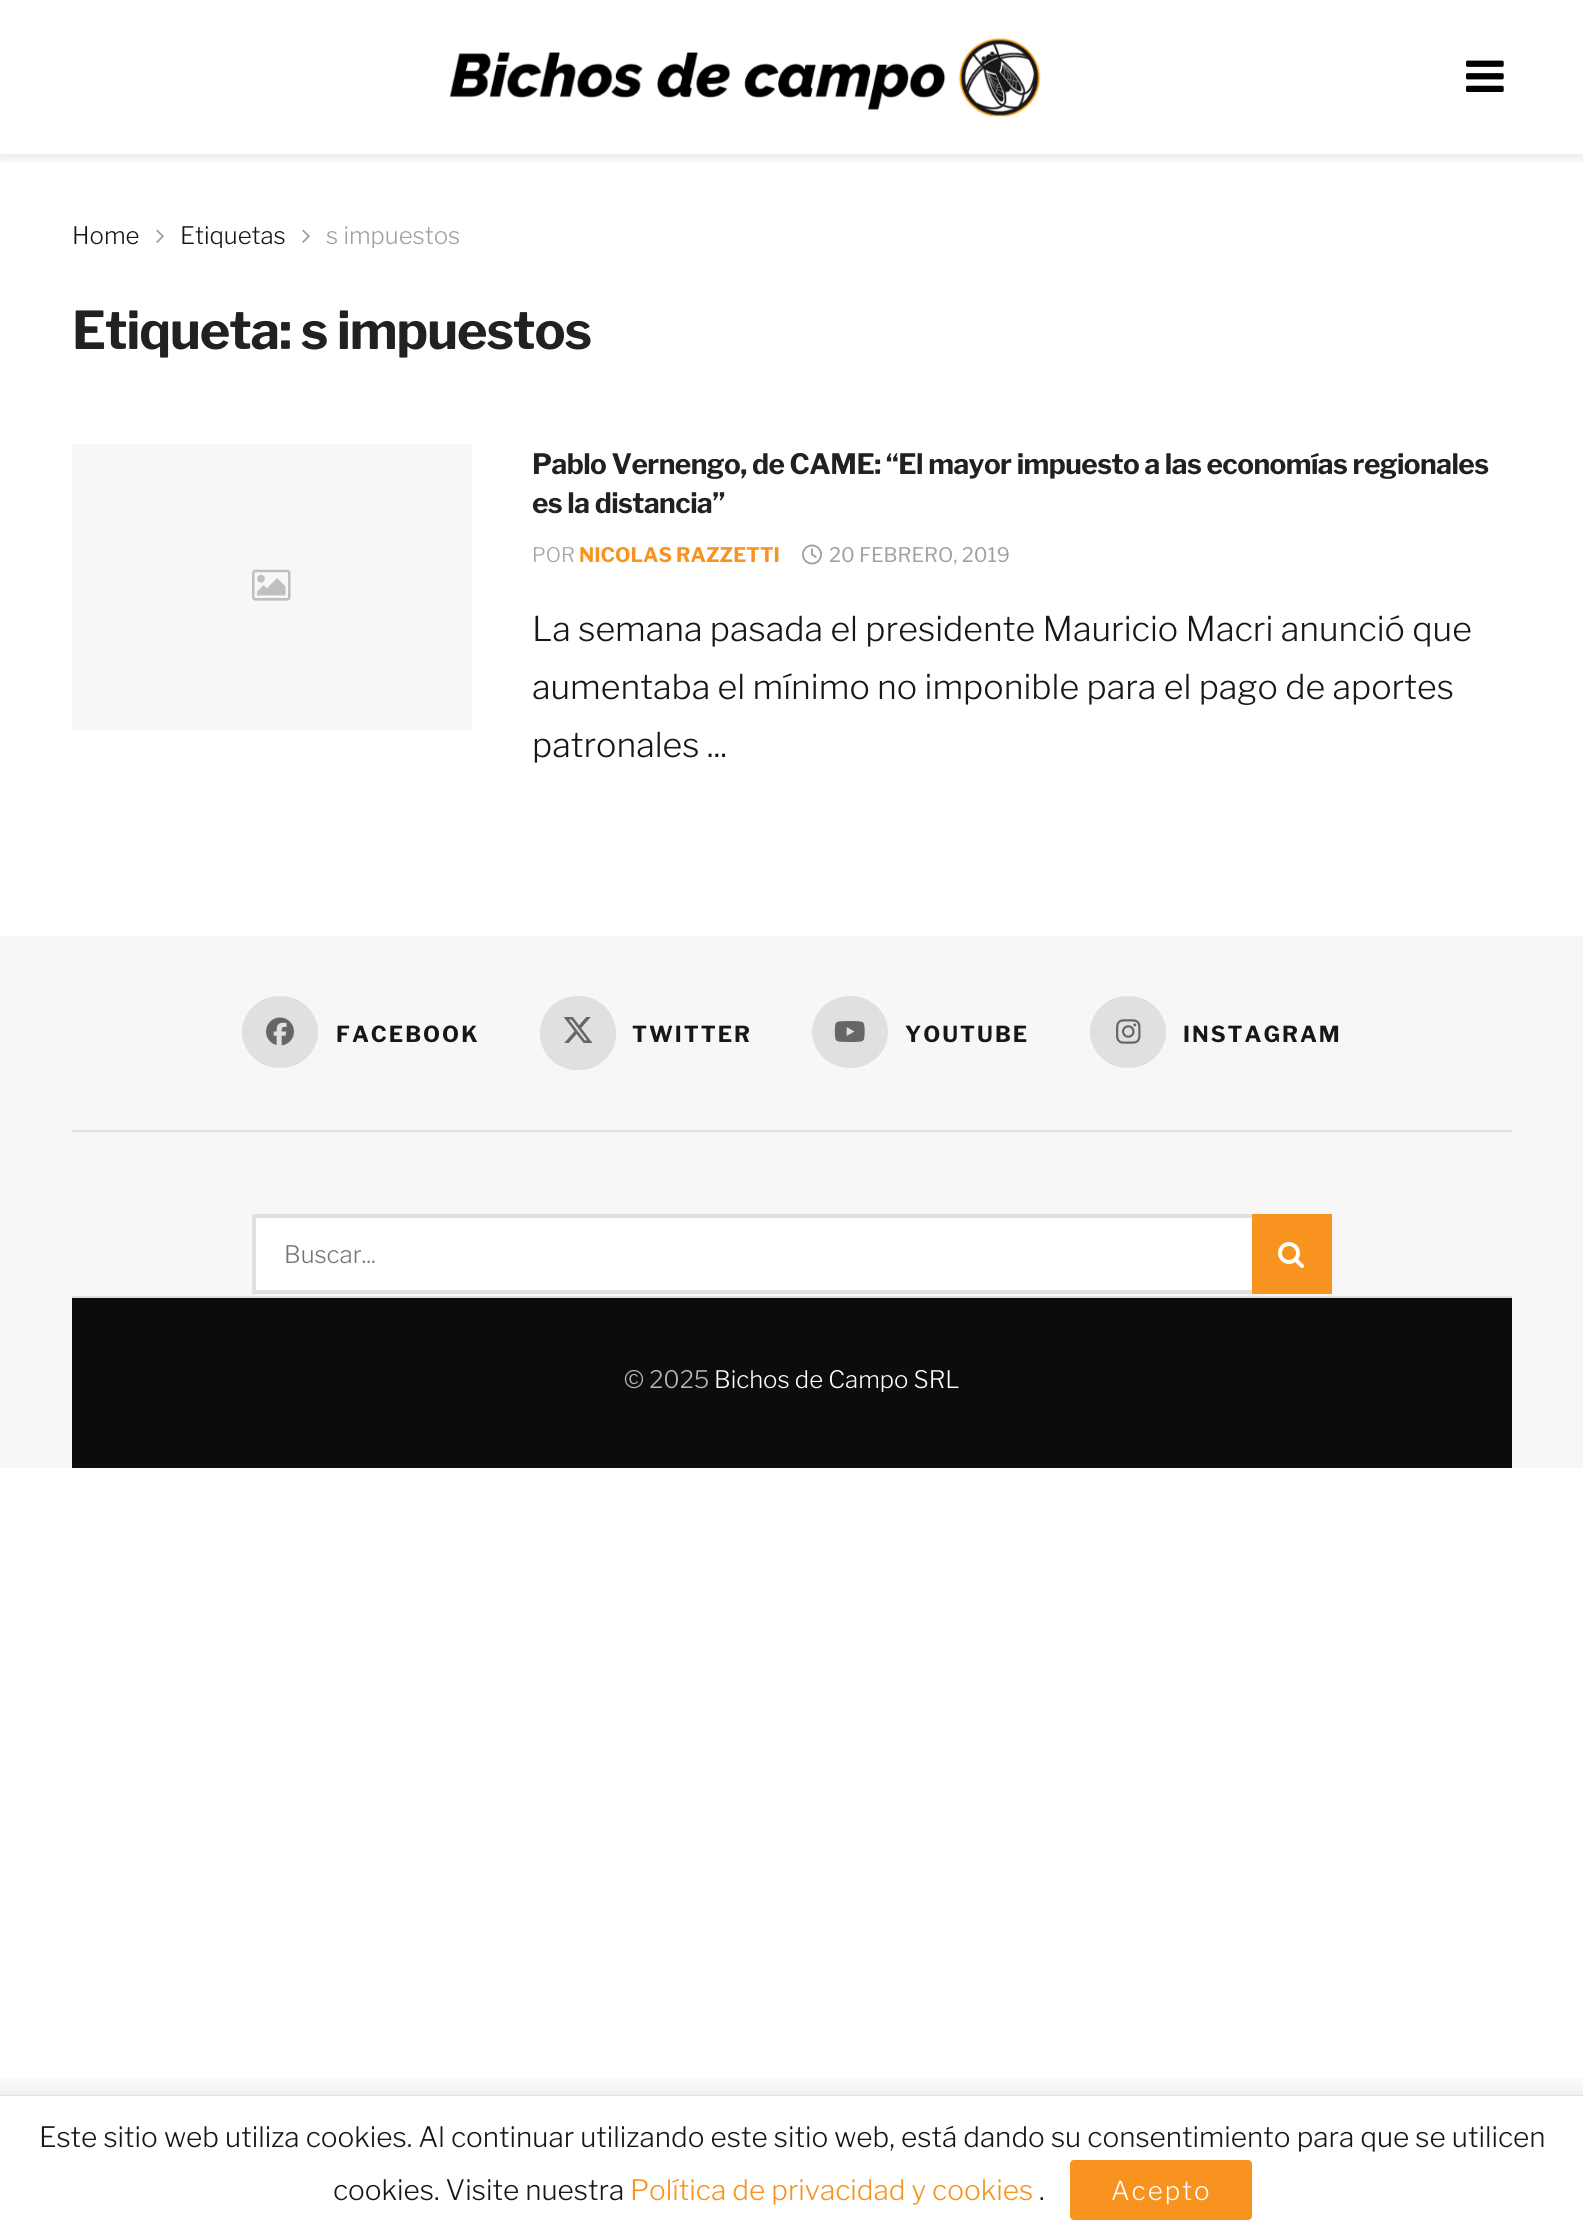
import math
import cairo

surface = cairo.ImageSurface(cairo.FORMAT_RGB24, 1583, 2240)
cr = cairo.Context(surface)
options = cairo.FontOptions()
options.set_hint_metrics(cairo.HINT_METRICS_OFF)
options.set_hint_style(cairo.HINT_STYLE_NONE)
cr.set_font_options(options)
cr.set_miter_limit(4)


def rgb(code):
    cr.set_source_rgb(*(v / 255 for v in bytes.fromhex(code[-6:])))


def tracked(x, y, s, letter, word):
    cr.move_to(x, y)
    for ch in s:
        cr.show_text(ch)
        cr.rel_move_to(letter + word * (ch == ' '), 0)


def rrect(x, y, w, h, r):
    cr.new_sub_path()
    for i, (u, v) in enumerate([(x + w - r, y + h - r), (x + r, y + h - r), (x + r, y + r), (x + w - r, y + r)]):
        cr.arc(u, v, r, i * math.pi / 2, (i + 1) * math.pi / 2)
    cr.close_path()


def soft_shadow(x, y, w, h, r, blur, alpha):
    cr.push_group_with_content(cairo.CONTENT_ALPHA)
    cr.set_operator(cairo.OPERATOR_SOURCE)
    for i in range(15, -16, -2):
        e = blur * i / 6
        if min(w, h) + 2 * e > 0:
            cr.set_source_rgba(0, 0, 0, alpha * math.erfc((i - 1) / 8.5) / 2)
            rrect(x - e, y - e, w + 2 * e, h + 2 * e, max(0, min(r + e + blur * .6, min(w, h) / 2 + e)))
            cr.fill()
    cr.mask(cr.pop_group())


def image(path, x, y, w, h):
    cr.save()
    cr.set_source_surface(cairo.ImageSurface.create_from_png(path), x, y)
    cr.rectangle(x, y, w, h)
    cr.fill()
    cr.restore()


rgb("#ffffff")
cr.paint()
cr.save()
cr.rectangle(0, 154, 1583, 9)
cr.clip()
rgb("#000000")
soft_shadow(0, 4, 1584, 154, 0, 6, 0.1)
cr.restore()
image("img/1.png", 449, 37, 592, 80)
image("img/2.png", 1466, 60, 38, 32)
image("img/3.png", 156, 229, 8, 14)
image("img/3.png", 302, 229, 8, 14)
rgb("#f7f7f7")
cr.rectangle(72, 444, 400, 286)
cr.fill()
image("img/4.png", 252, 569, 39, 32)
image("img/5.png", 802, 544, 20, 21)
cr.rectangle(0, 936, 1583, 532)
cr.fill()
rgb("#e0e0e0")
cr.rectangle(72, 1130, 1440, 2)
cr.fill()
cr.new_path()
cr.move_to(280, 996)
cr.curve_to(301, 996, 318, 1012, 318, 1032)
cr.curve_to(318, 1052, 301, 1068, 280, 1068)
cr.curve_to(259, 1068, 242, 1052, 242, 1032)
cr.curve_to(242, 1012, 259, 996, 280, 996)
cr.close_path()
cr.fill()
image("img/6.png", 266, 1017, 28, 29)
rrect(540, 996, 76, 74, 37)
cr.fill()
cr.new_path()
cr.move_to(578, 998)
cr.curve_to(599, 998, 616, 1014, 616, 1034)
cr.curve_to(616, 1054, 599, 1070, 578, 1070)
cr.curve_to(557, 1070, 540, 1054, 540, 1034)
cr.curve_to(540, 1014, 557, 998, 578, 998)
cr.close_path()
cr.fill()
image("img/7.png", 563, 1017, 30, 26)
cr.new_path()
cr.move_to(850, 996)
cr.curve_to(871, 996, 888, 1012, 888, 1032)
cr.curve_to(888, 1052, 871, 1068, 850, 1068)
cr.curve_to(829, 1068, 812, 1052, 812, 1032)
cr.curve_to(812, 1012, 829, 996, 850, 996)
cr.close_path()
cr.fill()
image("img/8.png", 834, 1021, 31, 21)
cr.new_path()
cr.move_to(1128, 996)
cr.curve_to(1149, 996, 1166, 1012, 1166, 1032)
cr.curve_to(1166, 1052, 1149, 1068, 1128, 1068)
cr.curve_to(1107, 1068, 1090, 1052, 1090, 1032)
cr.curve_to(1090, 1012, 1107, 996, 1128, 996)
cr.close_path()
cr.fill()
image("img/9.png", 1116, 1019, 25, 25)
rgb("#ffffff")
cr.rectangle(256, 1218, 996, 72)
cr.fill()
cr.rectangle(254, 1216, 1076, 76)
rgb("#e0e0e0")
cr.set_line_width(4)
cr.stroke()
rgb("#f7931e")
cr.rectangle(1252, 1214, 80, 80)
cr.fill()
image("img/10.png", 1278, 1242, 26, 26)
rgb("#0c0c0c")
cr.rectangle(72, 1298, 1440, 170)
cr.fill()
rgb("#e0e0e0")
cr.rectangle(72, 1296, 1440, 2)
cr.fill()
cr.save()
cr.rectangle(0, 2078, 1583, 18)
cr.clip()
rgb("#000000")
soft_shadow(0, 2100, 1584, 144, 0, 20, 0.15)
cr.restore()
cr.save()
cr.rectangle(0, 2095, 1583, 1)
cr.clip()
rgb("#000000")
soft_shadow(0, 2096, 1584, 144, 0, 1, 0.2)
cr.restore()
rgb("#f7931e")
rrect(1070, 2160, 182, 60, 4)
cr.fill()
cr.select_font_face("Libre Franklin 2 Thin")
cr.set_font_size(24)
rgb("#171717")
cr.move_to(72, 244)
cr.show_text("Home")
cr.move_to(180, 244)
cr.show_text("Etiquetas")
rgb("#a0a0a0")
cr.move_to(326, 244)
cr.show_text("s impuestos")
cr.select_font_face("Libre Franklin Thin")
cr.set_font_size(52)
rgb("#212121")
tracked(72, 349, "Etiqueta: s impuestos", -1, 0)
cr.set_font_size(28)
tracked(532, 474, "Pablo Vernengo, de CAME: “El mayor impuesto a las economías regionales", -0.55, 0)
tracked(532, 513, "es la distancia”", -0.55, 0)
cr.select_font_face("Libre Franklin 2 Thin")
cr.set_font_size(20)
rgb("#a0a0a0")
cr.move_to(532, 562)
cr.show_text("POR")
cr.select_font_face("Libre Franklin Thin")
rgb("#f7931e")
cr.move_to(579, 562)
cr.show_text("NICOLAS RAZZETTI")
cr.select_font_face("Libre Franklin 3 Thin")
rgb("#a0a0a0")
cr.move_to(829, 562)
cr.show_text("20 FEBRERO, 2019")
cr.select_font_face("Libre Franklin 2 Thin")
cr.set_font_size(34)
rgb("#171717")
for x, y, s in [
    (532, 641, "La semana pasada el presidente Mauricio Macri anunció que"),
    (532, 699, "aumentaba el mínimo no imponible para el pago de aportes"),
    (532, 757, "patronales ..."),
]:
    cr.move_to(x, y)
    cr.show_text(s)
cr.select_font_face("Libre Franklin Thin")
cr.set_font_size(22)
for x, y, s in [
    (336, 1042, "FACEBOOK"),
    (632, 1042, "TWITTER"),
    (905, 1042, "YOUTUBE"),
    (1183, 1042, "INSTAGRAM"),
]:
    tracked(x, y, s, 2, 0)
cr.select_font_face("Libre Franklin 2 Thin")
cr.set_font_size(24)
rgb("#757575")
cr.move_to(284, 1263)
cr.show_text("Buscar...")
rgb("#b6b6b6")
cr.move_to(624, 1388)
cr.show_text("© 2025")
rgb("#ffffff")
cr.move_to(714, 1388)
cr.show_text("Bichos de Campo SRL")
cr.set_font_size(28)
rgb("#171717")
cr.move_to(39, 2147)
cr.show_text("Este sitio web utiliza cookies. Al continuar utilizando este sitio web, está dando su consentimiento para que se utilicen")
cr.move_to(333, 2200)
cr.show_text("cookies. Visite nuestra")
rgb("#f7931e")
cr.move_to(630, 2200)
cr.show_text("Política de privacidad y cookies")
rgb("#171717")
cr.move_to(1039, 2200)
cr.show_text(".")
cr.set_font_size(26)
rgb("#ffffff")
tracked(1111, 2200, "Acepto", 2, 0)
surface.write_to_png("page.png")
